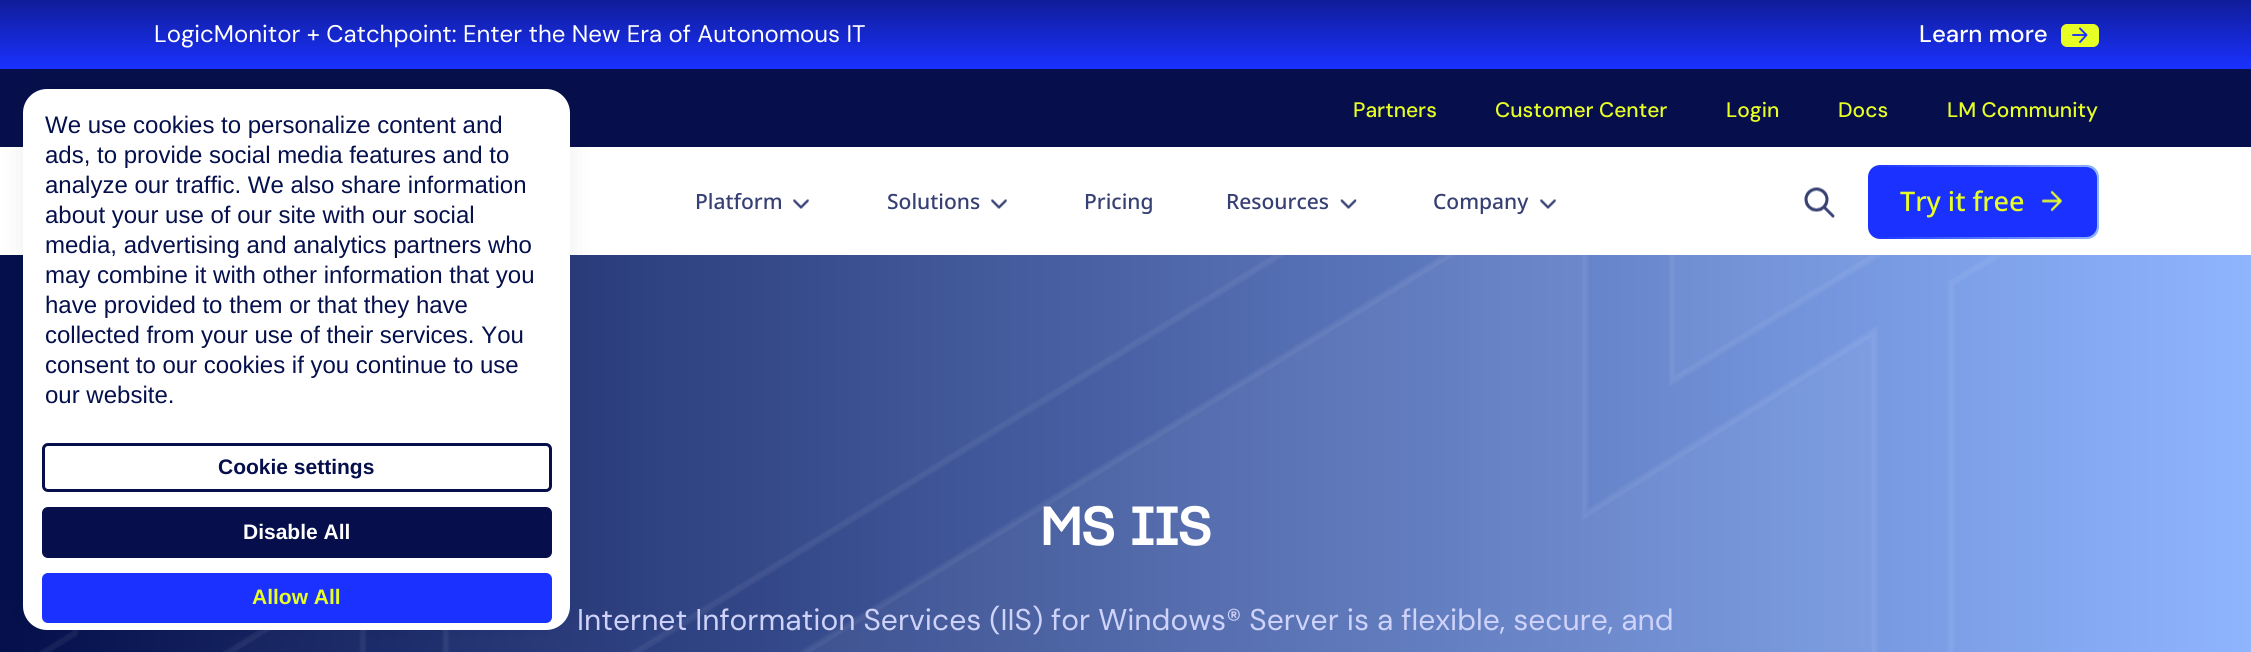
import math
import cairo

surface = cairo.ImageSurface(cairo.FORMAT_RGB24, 2251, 652)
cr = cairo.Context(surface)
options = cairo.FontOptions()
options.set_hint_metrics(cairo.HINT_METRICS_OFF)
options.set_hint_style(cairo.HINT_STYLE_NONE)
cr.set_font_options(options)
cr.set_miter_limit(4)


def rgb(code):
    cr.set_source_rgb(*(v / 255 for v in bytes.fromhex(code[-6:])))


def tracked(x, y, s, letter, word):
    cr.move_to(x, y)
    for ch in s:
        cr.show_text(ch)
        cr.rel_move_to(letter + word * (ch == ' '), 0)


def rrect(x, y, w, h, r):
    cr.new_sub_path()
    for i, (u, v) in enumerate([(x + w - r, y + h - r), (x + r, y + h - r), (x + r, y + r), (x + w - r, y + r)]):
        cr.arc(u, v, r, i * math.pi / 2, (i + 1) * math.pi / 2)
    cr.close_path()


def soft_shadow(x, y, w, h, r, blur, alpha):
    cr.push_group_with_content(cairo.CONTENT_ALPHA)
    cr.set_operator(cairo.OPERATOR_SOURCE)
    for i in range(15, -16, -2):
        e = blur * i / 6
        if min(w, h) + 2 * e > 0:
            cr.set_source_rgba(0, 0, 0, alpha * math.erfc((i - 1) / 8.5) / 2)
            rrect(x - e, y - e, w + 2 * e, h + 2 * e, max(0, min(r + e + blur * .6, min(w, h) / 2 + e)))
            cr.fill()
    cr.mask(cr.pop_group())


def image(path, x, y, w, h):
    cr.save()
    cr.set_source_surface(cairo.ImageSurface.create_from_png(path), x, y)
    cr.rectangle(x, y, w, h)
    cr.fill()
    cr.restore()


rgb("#ffffff")
cr.paint()
gradient = cairo.LinearGradient(1126, 69, 1126, 0)
gradient.add_color_stop_rgba(0, 0.102, 0.192, 1, 1)
gradient.add_color_stop_rgba(1, 0.063, 0.114, 0.6, 1)
cr.set_source(gradient)
cr.rectangle(0, 0, 2251, 69)
cr.fill()
rgb("#e8ff26")
rrect(2061, 24, 38, 23, 6)
cr.fill()
cr.new_path()
cr.move_to(2073, 35)
cr.line_to(2086.5, 35)
cr.move_to(2086.5, 35)
cr.line_to(2080, 28.5)
cr.move_to(2086.5, 35)
cr.line_to(2080, 42)
rgb("#1a31ff")
cr.set_line_width(1.9)
cr.set_line_cap(cairo.LINE_CAP_ROUND)
cr.set_line_join(cairo.LINE_JOIN_ROUND)
cr.stroke()
rgb("#060f4b")
cr.rectangle(0, 69, 2251, 78)
cr.fill()
gradient = cairo.LinearGradient(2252, 555, 0, 555)
gradient.add_color_stop_rgba(0, 0.561, 0.71, 1, 1)
gradient.add_color_stop_rgba(1, 0.016, 0.059, 0.294, 1)
cr.set_source(gradient)
cr.rectangle(0, 255, 2251, 397)
cr.fill()
image("img/5.png", 39, 255, 1963, 397)
rgb("#000000")
soft_shadow(23, 83, 547, 541, 24, 14, 0.07)
rgb("#ffffff")
rrect(23, 89, 547, 541, 24)
cr.fill()
rrect(43.5, 444.5, 507, 46, 4.5)
rgb("#060f4b")
cr.set_line_width(3)
cr.set_line_cap(cairo.LINE_CAP_BUTT)
cr.set_line_join(cairo.LINE_JOIN_MITER)
cr.stroke()
rrect(43.5, 508.5, 507, 48, 4.5)
cr.fill_preserve()
cr.stroke()
rgb("#1a31ff")
rrect(43.5, 574.5, 507, 47, 4.5)
cr.fill_preserve()
cr.stroke()
image("img/1.png", 793, 199, 16, 10)
image("img/1.png", 991, 199, 16, 10)
image("img/2.png", 1340, 199, 17, 10)
image("img/1.png", 1540, 199, 16, 10)
image("img/3.png", 1804, 187, 31, 31)
gradient = cairo.LinearGradient(2099, 202, 1868, 202)
gradient.add_color_stop_rgba(0, 0.561, 0.71, 1, 1)
gradient.add_color_stop_rgba(1, 0.102, 0.192, 1, 1)
cr.set_source(gradient)
rrect(1868, 165, 231, 74, 12)
cr.fill()
rgb("#1a31ff")
rrect(1869, 167, 228, 70, 11)
cr.fill()
image("img/4.png", 2042, 190, 20, 22)
cr.select_font_face("DM Sans")
cr.set_font_size(24)
rgb("#ffffff")
cr.move_to(154, 42)
cr.show_text("LogicMonitor + Catchpoint: Enter the New Era of Autonomous IT")
cr.select_font_face("DM Sans Medium")
cr.move_to(1919, 42)
cr.show_text("Learn more")
cr.select_font_face("Liberation Sans")
rgb("#040f4b")
for x, y, s in [
    (45, 133, "We use cookies to personalize content and"),
    (45, 163, "ads, to provide social media features and to"),
    (45, 193, "analyze our traffic. We also share information"),
    (45, 223, "about your use of our site with our social"),
    (45, 253, "media, advertising and analytics partners who"),
    (45, 283, "may combine it with other information that you"),
    (45, 313, "have provided to them or that they have"),
    (45, 343, "collected from your use of their services. You"),
    (45, 373, "consent to our cookies if you continue to use"),
    (45, 403, "our website."),
]:
    cr.move_to(x, y)
    cr.show_text(s)
cr.select_font_face("Liberation Sans", cairo.FONT_SLANT_NORMAL, cairo.FONT_WEIGHT_BOLD)
cr.set_font_size(21)
cr.move_to(218, 474)
cr.show_text("Cookie settings")
rgb("#ffffff")
cr.move_to(243, 539)
cr.show_text("Disable All")
rgb("#e8ff26")
cr.move_to(252, 604)
cr.show_text("Allow All")
cr.select_font_face("DM Sans Medium")
for x, y, s in [
    (1353, 117, "Partners"),
    (1495, 117, "Customer Center"),
    (1726, 117, "Login"),
    (1838, 117, "Docs"),
    (1947, 117, "LM Community"),
]:
    cr.move_to(x, y)
    cr.show_text(s)
cr.select_font_face("Noto Sans Medium")
rgb("#374073")
for x, y, s in [
    (695, 209, "Platform"),
    (887, 209, "Solutions"),
    (1084, 209, "Pricing"),
    (1226, 209, "Resources"),
    (1433, 209, "Company"),
]:
    cr.move_to(x, y)
    cr.show_text(s)
cr.set_font_size(27)
rgb("#e8ff26")
cr.move_to(1900, 211)
cr.show_text("Try it free")
cr.select_font_face("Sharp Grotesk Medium")
cr.set_font_size(54)
rgb("#ffffff")
tracked(1040, 545, "MS IIS", -1, 0)
cr.select_font_face("DM Sans")
cr.set_font_size(30)
rgb("#cfd3fa")
cr.move_to(577, 630)
cr.show_text("Internet Information Services (IIS) for Windows® Server is a flexible, secure, and")
surface.write_to_png("page.png")
